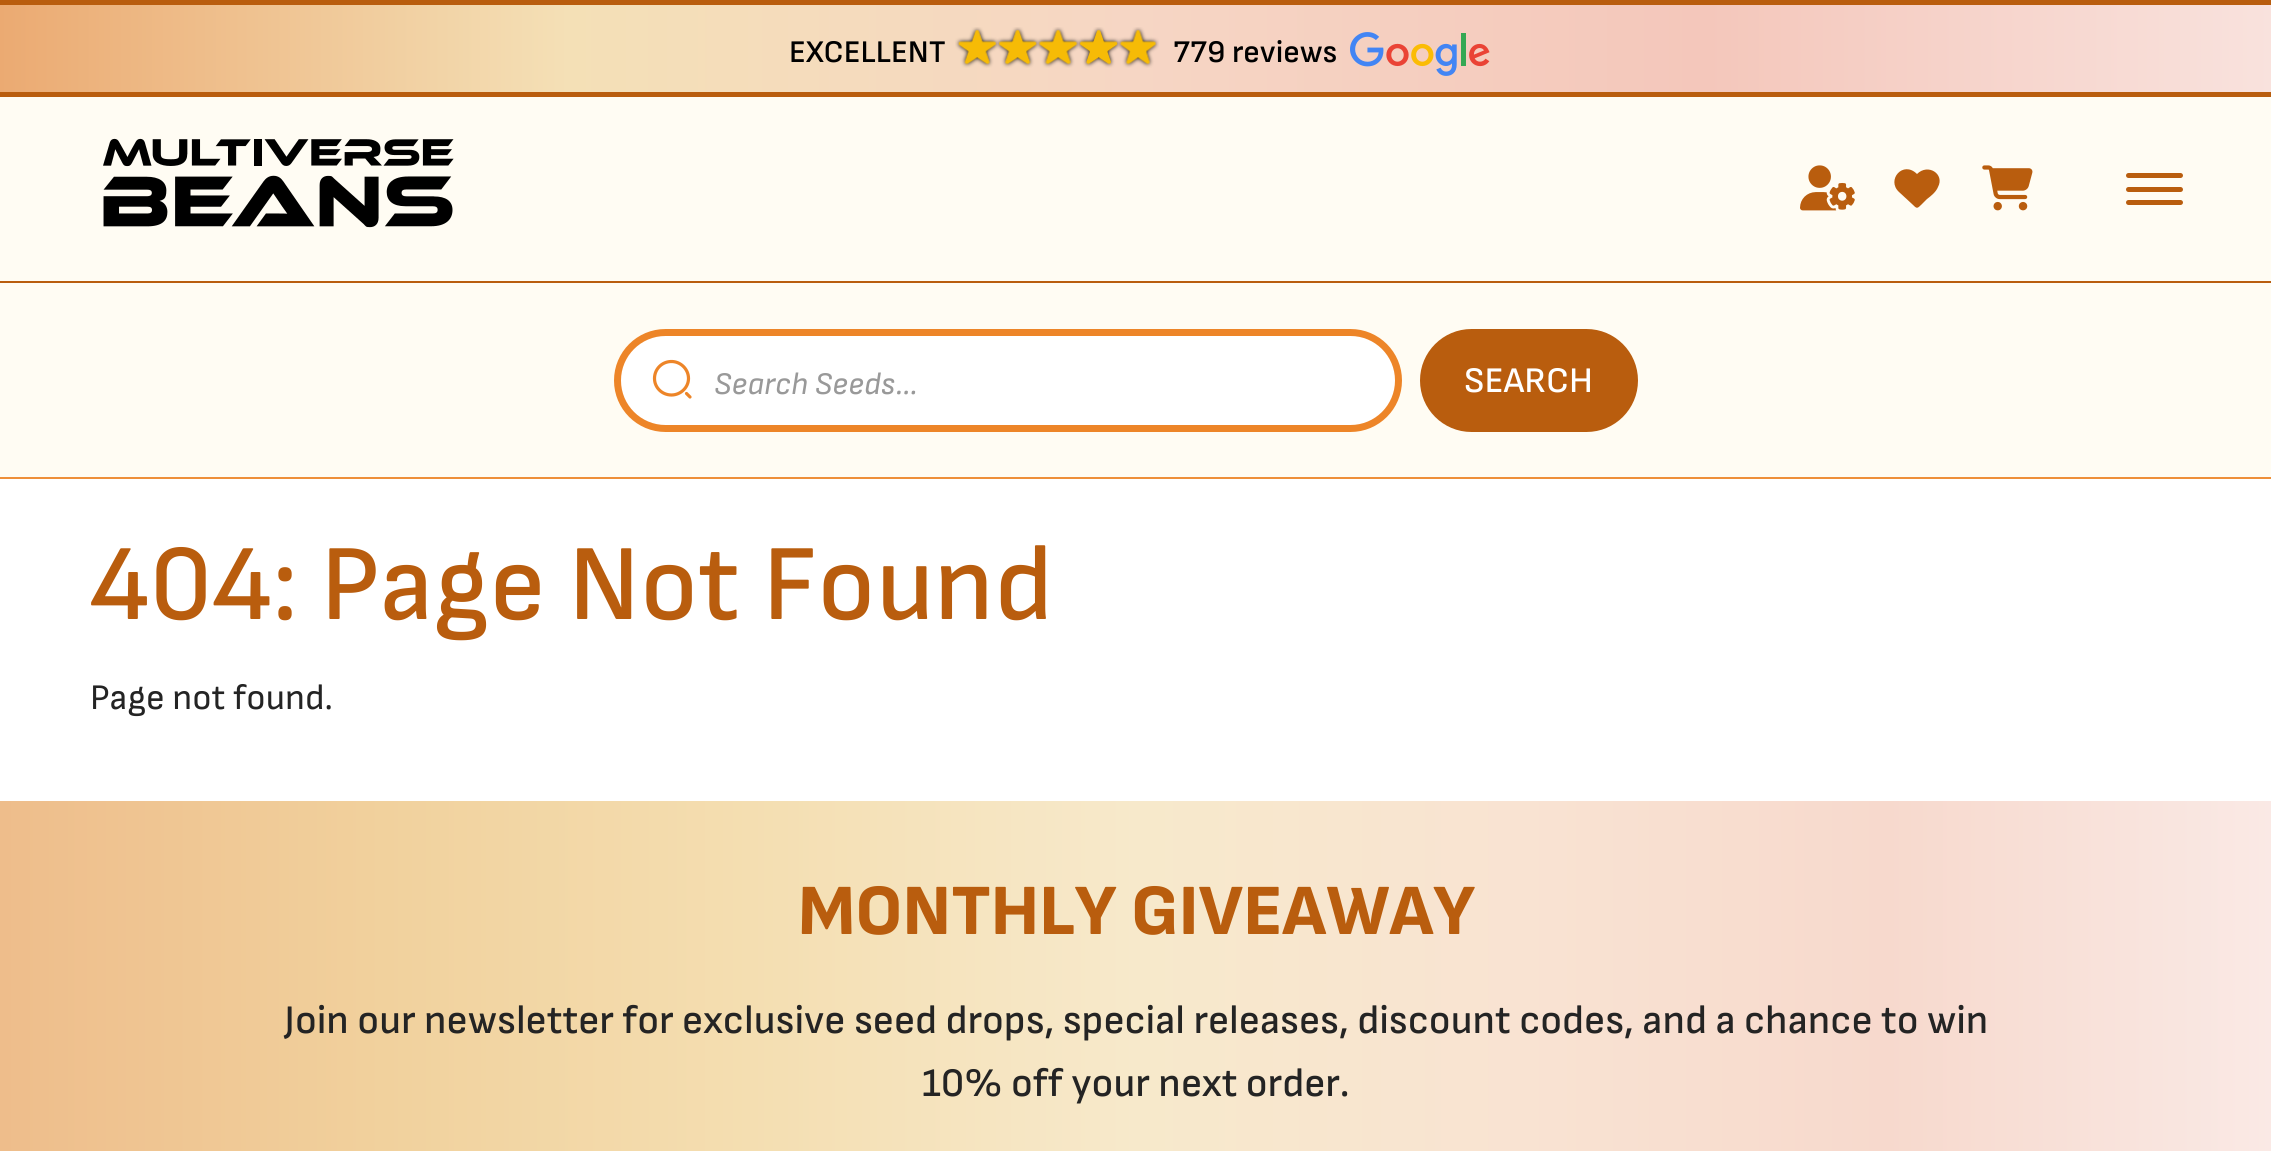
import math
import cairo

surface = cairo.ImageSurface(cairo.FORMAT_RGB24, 2271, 1151)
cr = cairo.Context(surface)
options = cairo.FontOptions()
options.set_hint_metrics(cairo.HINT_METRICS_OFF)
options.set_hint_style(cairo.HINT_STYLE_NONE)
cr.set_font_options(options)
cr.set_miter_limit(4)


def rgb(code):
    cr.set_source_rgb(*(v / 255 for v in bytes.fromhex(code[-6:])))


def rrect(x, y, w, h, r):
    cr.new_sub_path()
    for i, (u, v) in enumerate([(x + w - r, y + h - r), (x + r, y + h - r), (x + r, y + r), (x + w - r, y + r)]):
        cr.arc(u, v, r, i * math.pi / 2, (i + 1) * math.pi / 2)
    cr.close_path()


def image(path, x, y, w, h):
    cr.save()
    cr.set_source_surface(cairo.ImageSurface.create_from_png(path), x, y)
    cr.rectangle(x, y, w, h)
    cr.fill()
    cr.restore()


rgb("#ffffff")
cr.paint()
rgb("#fffcf3")
cr.rectangle(0, 97, 2271, 380)
cr.fill()
gradient = cairo.LinearGradient(0, 48, 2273, 48)
gradient.add_color_stop_rgba(0, 0.922, 0.667, 0.447, 1)
gradient.add_color_stop_rgba(0.25, 0.957, 0.878, 0.714, 1)
gradient.add_color_stop_rgba(0.5, 0.965, 0.839, 0.769, 1)
gradient.add_color_stop_rgba(0.75, 0.957, 0.78, 0.733, 1)
gradient.add_color_stop_rgba(1, 0.976, 0.886, 0.867, 1)
cr.set_source(gradient)
cr.rectangle(0, 5, 2271, 87)
cr.fill()
rgb("#b95d0e")
cr.rectangle(0, 0, 2271, 5)
cr.fill()
cr.rectangle(0, 92, 2271, 5)
cr.fill()
image("img/1.png", 955, 27, 44, 41)
image("img/2.png", 996, 27, 44, 41)
image("img/3.png", 1036, 27, 44, 41)
image("img/4.png", 1077, 27, 44, 41)
image("img/5.png", 1117, 27, 42, 41)
image("img/6.png", 1350, 32, 140, 44)
cr.rectangle(0, 281, 2271, 2)
cr.fill()
image("img/7.png", 103, 138, 351, 90)
image("img/8.png", 1800, 165, 55, 46)
cr.new_path()
cr.move_to(1899, 192)
cr.line_to(1915, 207)
cr.line_to(1899, 192)
cr.line_to(1912, 204)
cr.curve_to(1917, 209, 1917, 209, 1922, 204)
cr.line_to(1927, 199)
cr.curve_to(1931, 196, 1936, 192, 1938, 187)
cr.curve_to(1945, 174, 1928, 163, 1917, 174)
cr.curve_to(1903, 160, 1886, 180, 1899, 192)
cr.close_path()
cr.fill()
image("img/9.png", 1982, 165, 51, 46)
rrect(2126, 173, 57, 5, 2.5)
cr.fill()
rrect(2126, 187, 57, 5, 2.5)
cr.fill()
rrect(2126, 200, 57, 5, 2.5)
cr.fill()
rgb("#ee8f39")
cr.rectangle(0, 477, 2271, 2)
cr.fill()
rgb("#ffffff")
rrect(617.5, 332.5, 781, 96, 48)
cr.fill_preserve()
rgb("#ed8528")
cr.set_line_width(7)
cr.stroke()
cr.new_path()
cr.move_to(671.5, 395)
cr.curve_to(680.5, 395, 688.5, 387.5, 688.5, 378.5)
cr.curve_to(688.5, 369, 680.5, 361.5, 671.5, 361.5)
cr.curve_to(662, 361.5, 654.5, 369, 654.5, 378.5)
cr.curve_to(654.5, 387.5, 662, 395, 671.5, 395)
cr.close_path()
cr.move_to(690, 397)
cr.line_to(686.5, 393.5)
cr.set_line_width(3.2)
cr.set_line_cap(cairo.LINE_CAP_ROUND)
cr.set_line_join(cairo.LINE_JOIN_ROUND)
cr.stroke()
rgb("#b95d0e")
rrect(1420, 329, 218, 103, 51.5)
cr.fill()
gradient = cairo.LinearGradient(0, 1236, 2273, 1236)
gradient.add_color_stop_rgba(0, 0.933, 0.741, 0.545, 1)
gradient.add_color_stop_rgba(0.17, 0.945, 0.82, 0.616, 1)
gradient.add_color_stop_rgba(0.33, 0.957, 0.871, 0.694, 1)
gradient.add_color_stop_rgba(0.5, 0.969, 0.914, 0.796, 1)
gradient.add_color_stop_rgba(0.67, 0.976, 0.89, 0.824, 1)
gradient.add_color_stop_rgba(0.83, 0.969, 0.851, 0.804, 1)
gradient.add_color_stop_rgba(1, 0.98, 0.914, 0.898, 1)
cr.set_source(gradient)
cr.rectangle(0, 801, 2271, 350)
cr.fill()
cr.select_font_face("Sofia Sans SemiBold")
cr.set_font_size(31.5)
rgb("#000000")
cr.move_to(789, 62)
cr.show_text("EXCELLENT")
cr.move_to(1173, 62)
cr.show_text("779 reviews")
cr.select_font_face("Sofia Sans", cairo.FONT_SLANT_ITALIC)
rgb("#999999")
cr.move_to(714, 394)
cr.show_text("Search Seeds...")
cr.select_font_face("Sofia Sans Medium")
cr.set_font_size(36)
rgb("#ffffff")
cr.move_to(1464, 392)
cr.show_text("SEARCH")
cr.set_font_size(108)
rgb("#b95d0e")
cr.move_to(90, 619)
cr.show_text("404: Page Not Found")
cr.select_font_face("Sofia Sans")
cr.set_font_size(36)
rgb("#242424")
cr.move_to(90, 709)
cr.show_text("Page not found.")
cr.select_font_face("Sofia Sans ExtraBold")
cr.set_font_size(72)
rgb("#b95d0e")
cr.move_to(798, 934)
cr.show_text("MONTHLY GIVEAWAY")
cr.select_font_face("Sofia Sans Medium")
cr.set_font_size(40.5)
rgb("#242424")
cr.move_to(284, 1033)
cr.show_text("Join our newsletter for exclusive seed drops, special releases, discount codes, and a chance to win")
cr.move_to(922, 1096)
cr.show_text("10% off your next order.")
surface.write_to_png("page.png")
